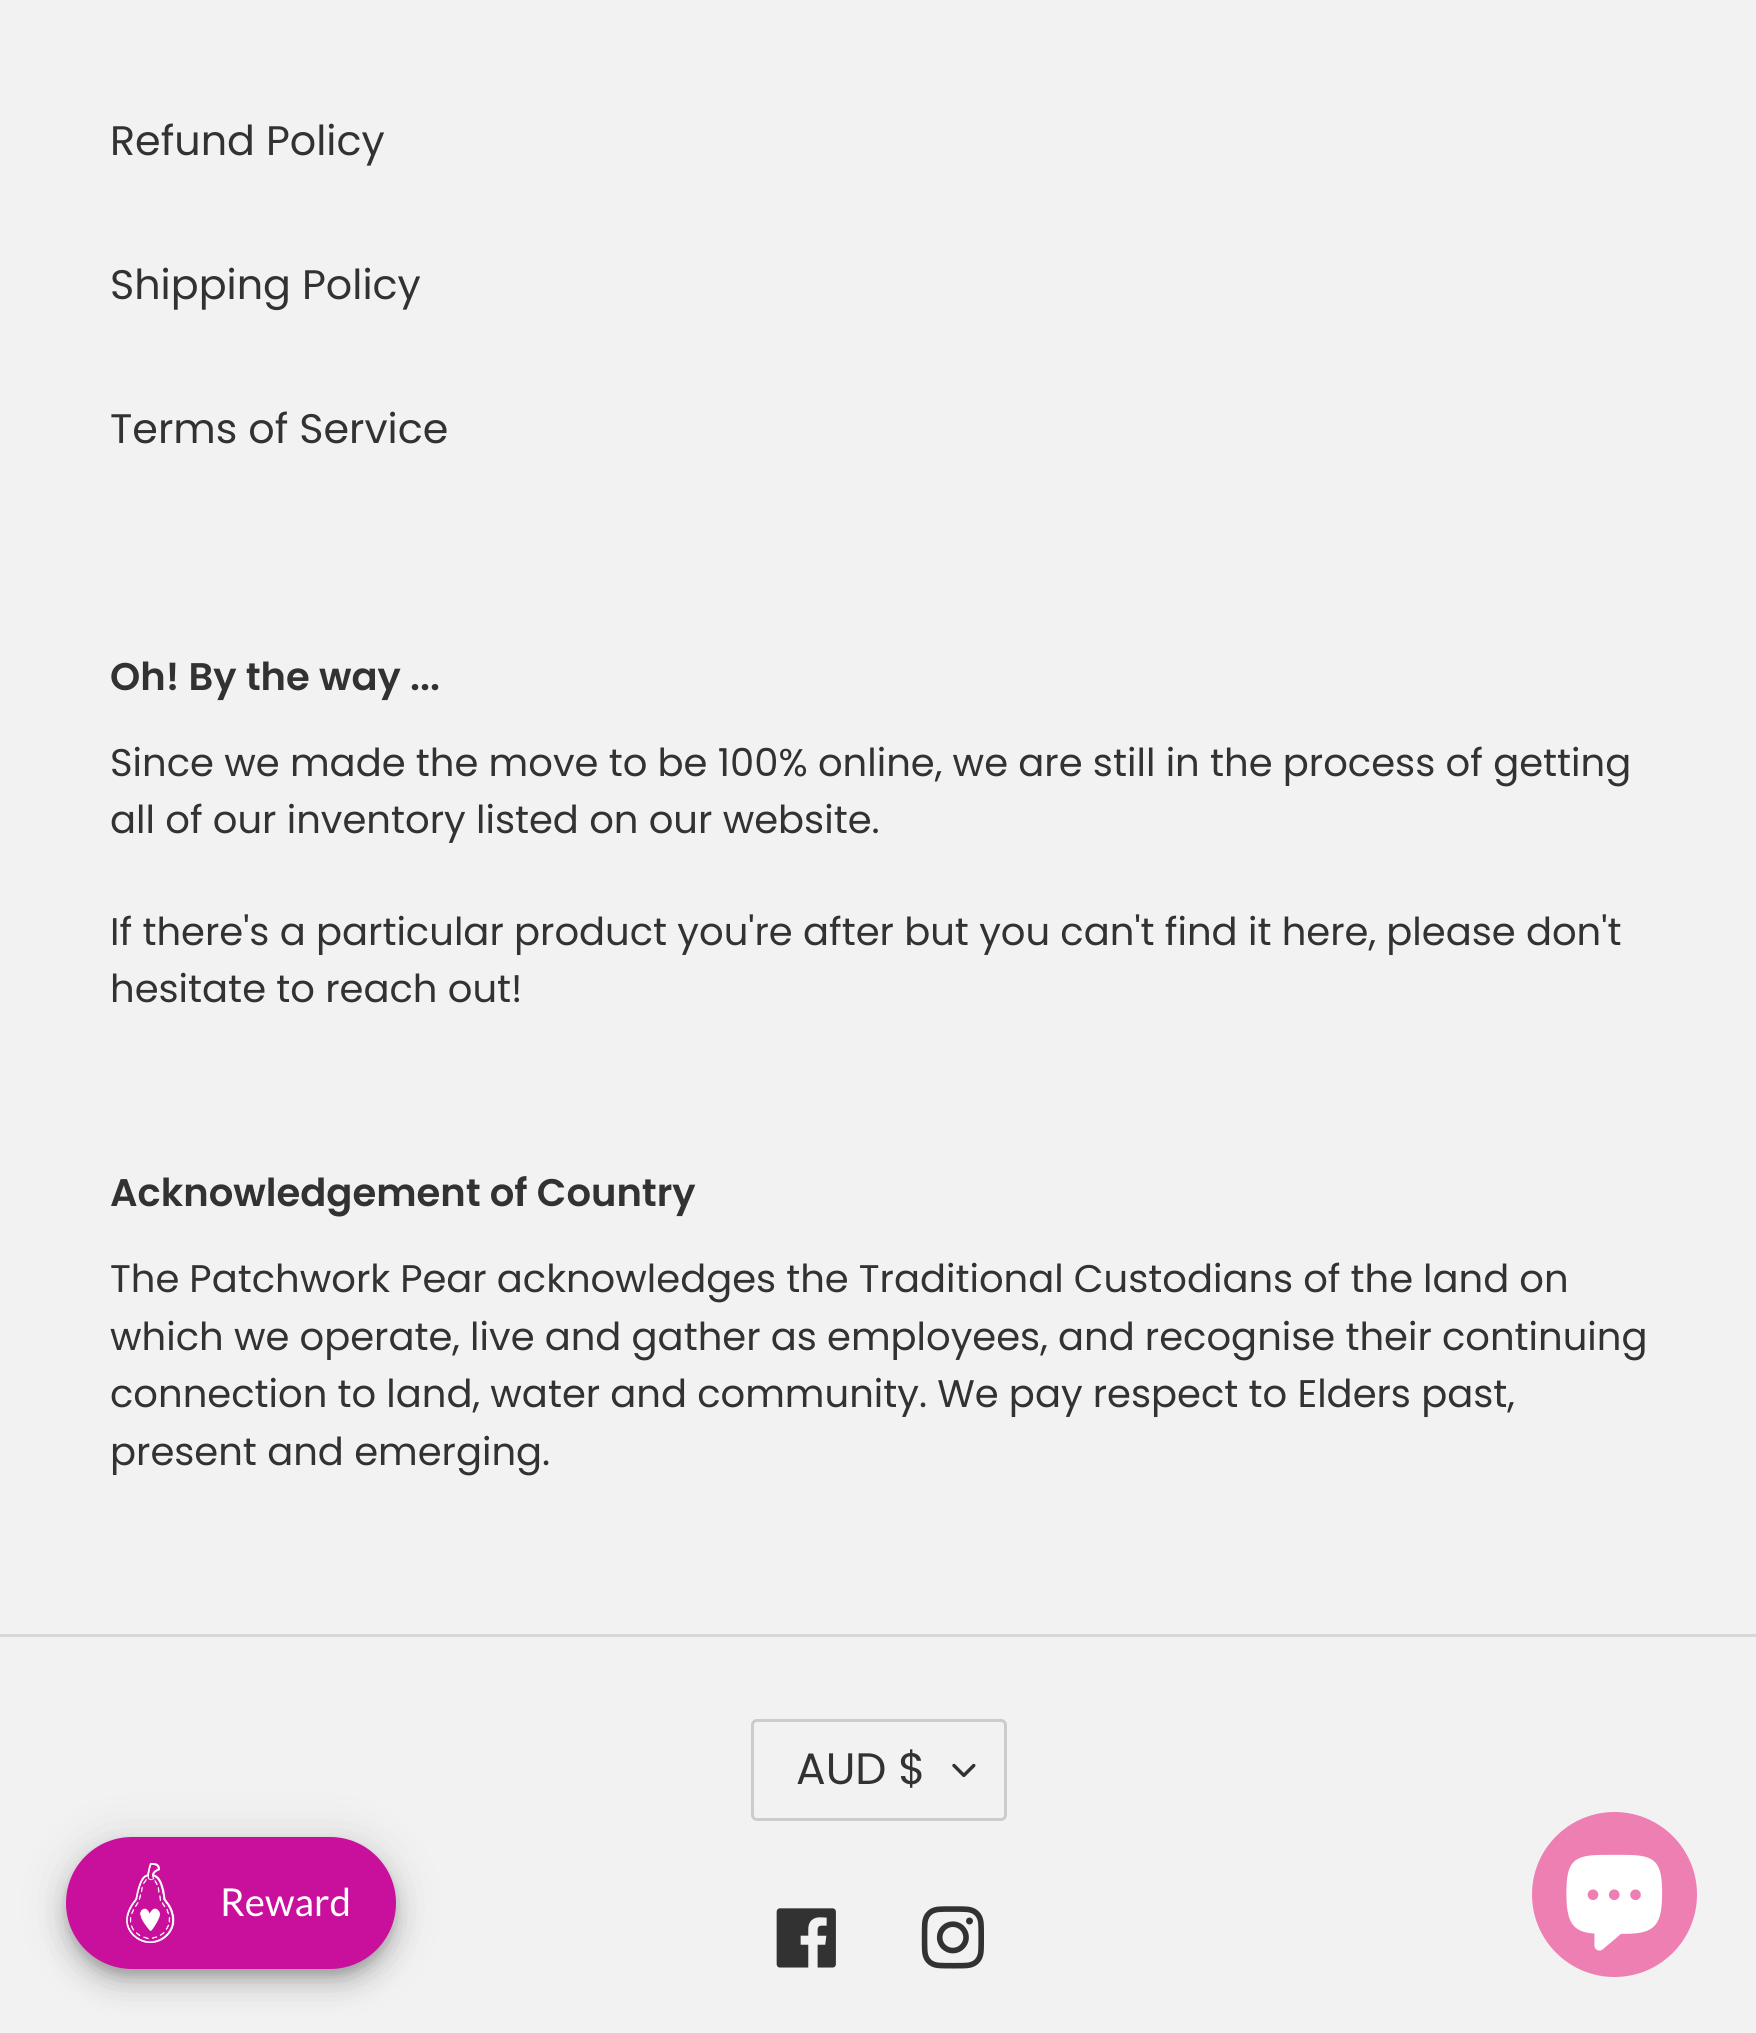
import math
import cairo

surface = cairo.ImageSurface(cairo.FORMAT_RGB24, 1756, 2033)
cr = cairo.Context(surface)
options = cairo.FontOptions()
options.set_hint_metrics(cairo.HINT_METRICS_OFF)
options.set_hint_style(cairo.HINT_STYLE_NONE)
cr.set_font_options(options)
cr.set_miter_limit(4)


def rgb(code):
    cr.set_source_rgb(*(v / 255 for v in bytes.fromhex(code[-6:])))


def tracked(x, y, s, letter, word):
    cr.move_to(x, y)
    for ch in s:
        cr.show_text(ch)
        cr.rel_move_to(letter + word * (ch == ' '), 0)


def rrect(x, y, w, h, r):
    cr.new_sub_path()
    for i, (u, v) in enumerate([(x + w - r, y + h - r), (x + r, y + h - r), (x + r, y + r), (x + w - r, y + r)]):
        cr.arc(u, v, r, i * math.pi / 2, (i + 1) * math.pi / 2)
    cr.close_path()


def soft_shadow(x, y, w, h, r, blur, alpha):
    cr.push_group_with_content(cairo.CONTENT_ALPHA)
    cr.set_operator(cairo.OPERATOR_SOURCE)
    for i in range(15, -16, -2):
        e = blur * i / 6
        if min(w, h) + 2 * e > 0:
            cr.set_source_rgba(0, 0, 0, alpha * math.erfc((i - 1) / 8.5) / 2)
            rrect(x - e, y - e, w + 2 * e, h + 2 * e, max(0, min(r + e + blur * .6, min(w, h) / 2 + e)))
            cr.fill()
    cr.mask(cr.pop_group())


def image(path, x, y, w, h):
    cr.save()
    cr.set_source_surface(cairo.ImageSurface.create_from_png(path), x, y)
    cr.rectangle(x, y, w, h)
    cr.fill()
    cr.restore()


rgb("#f2f2f2")
cr.paint()
rgb("#d8d8d8")
cr.rectangle(0, 1634, 1756, 3)
cr.fill()
image("img/1.png", 952, 1763, 24, 15)
rrect(752.5, 1720.5, 253, 99, 4.5)
rgb("#cccccc")
cr.set_line_width(3)
cr.stroke()
image("img/2.png", 776, 1908, 60, 60)
image("img/3.png", 921, 1906, 63, 63)
rgb("#000000")
soft_shadow(66, 1840, 330, 132, 66, 25, 0.12)
soft_shadow(66, 1854, 330, 132, 66, 14, 0.14)
soft_shadow(69, 1848, 324, 127, 63.5, 7, 0.2)
rgb("#c8109d")
rrect(66, 1837, 330, 132, 66)
cr.fill()
image("img/4.png", 126, 1862, 49, 82)
rgb("#ee7fb2")
cr.arc(1614.5, 1894.5, 82.5, 0, 2 * math.pi)
cr.fill()
image("img/5.png", 1566, 1854, 97, 97)
cr.select_font_face("Poppins")
cr.set_font_size(41.25)
rgb("#333232")
for x, y, s in [
    (110, 155, "Refund Policy"),
    (110, 299, "Shipping Policy"),
    (110, 443, "Terms of Service"),
]:
    cr.move_to(x, y)
    cr.show_text(s)
cr.select_font_face("Poppins SemiBold")
cr.set_font_size(38.5)
cr.move_to(110, 690)
cr.show_text("Oh! By the way ...")
cr.select_font_face("Poppins")
for x, y, s in [
    (110, 776, "Since we made the move to be 100% online, we are still in the process of getting"),
    (110, 833, "all of our inventory listed on our website."),
    (110, 945, "If there's a particular product you're after but you can't find it here, please don't"),
    (110, 1002, "hesitate to reach out!"),
]:
    cr.move_to(x, y)
    cr.show_text(s)
cr.select_font_face("Poppins SemiBold")
cr.move_to(110, 1206)
cr.show_text("Acknowledgement of Country")
cr.select_font_face("Poppins")
tracked(110, 1292, "The Patchwork Pear acknowledges the Traditional Custodians of the land on", 0, -0.25)
tracked(110, 1350, "which we operate, live and gather as employees, and recognise their continuing", 0, -0.1)
tracked(110, 1407, "connection to land, water and community. We pay respect to Elders past,", 0, -0.1)
cr.move_to(110, 1465)
cr.show_text("present and emerging.")
cr.set_font_size(44)
cr.move_to(796, 1784)
cr.show_text("AUD $")
cr.select_font_face("Lato")
cr.set_font_size(38.5)
rgb("#ffffff")
cr.move_to(220, 1916)
cr.show_text("Reward")
surface.write_to_png("page.png")
